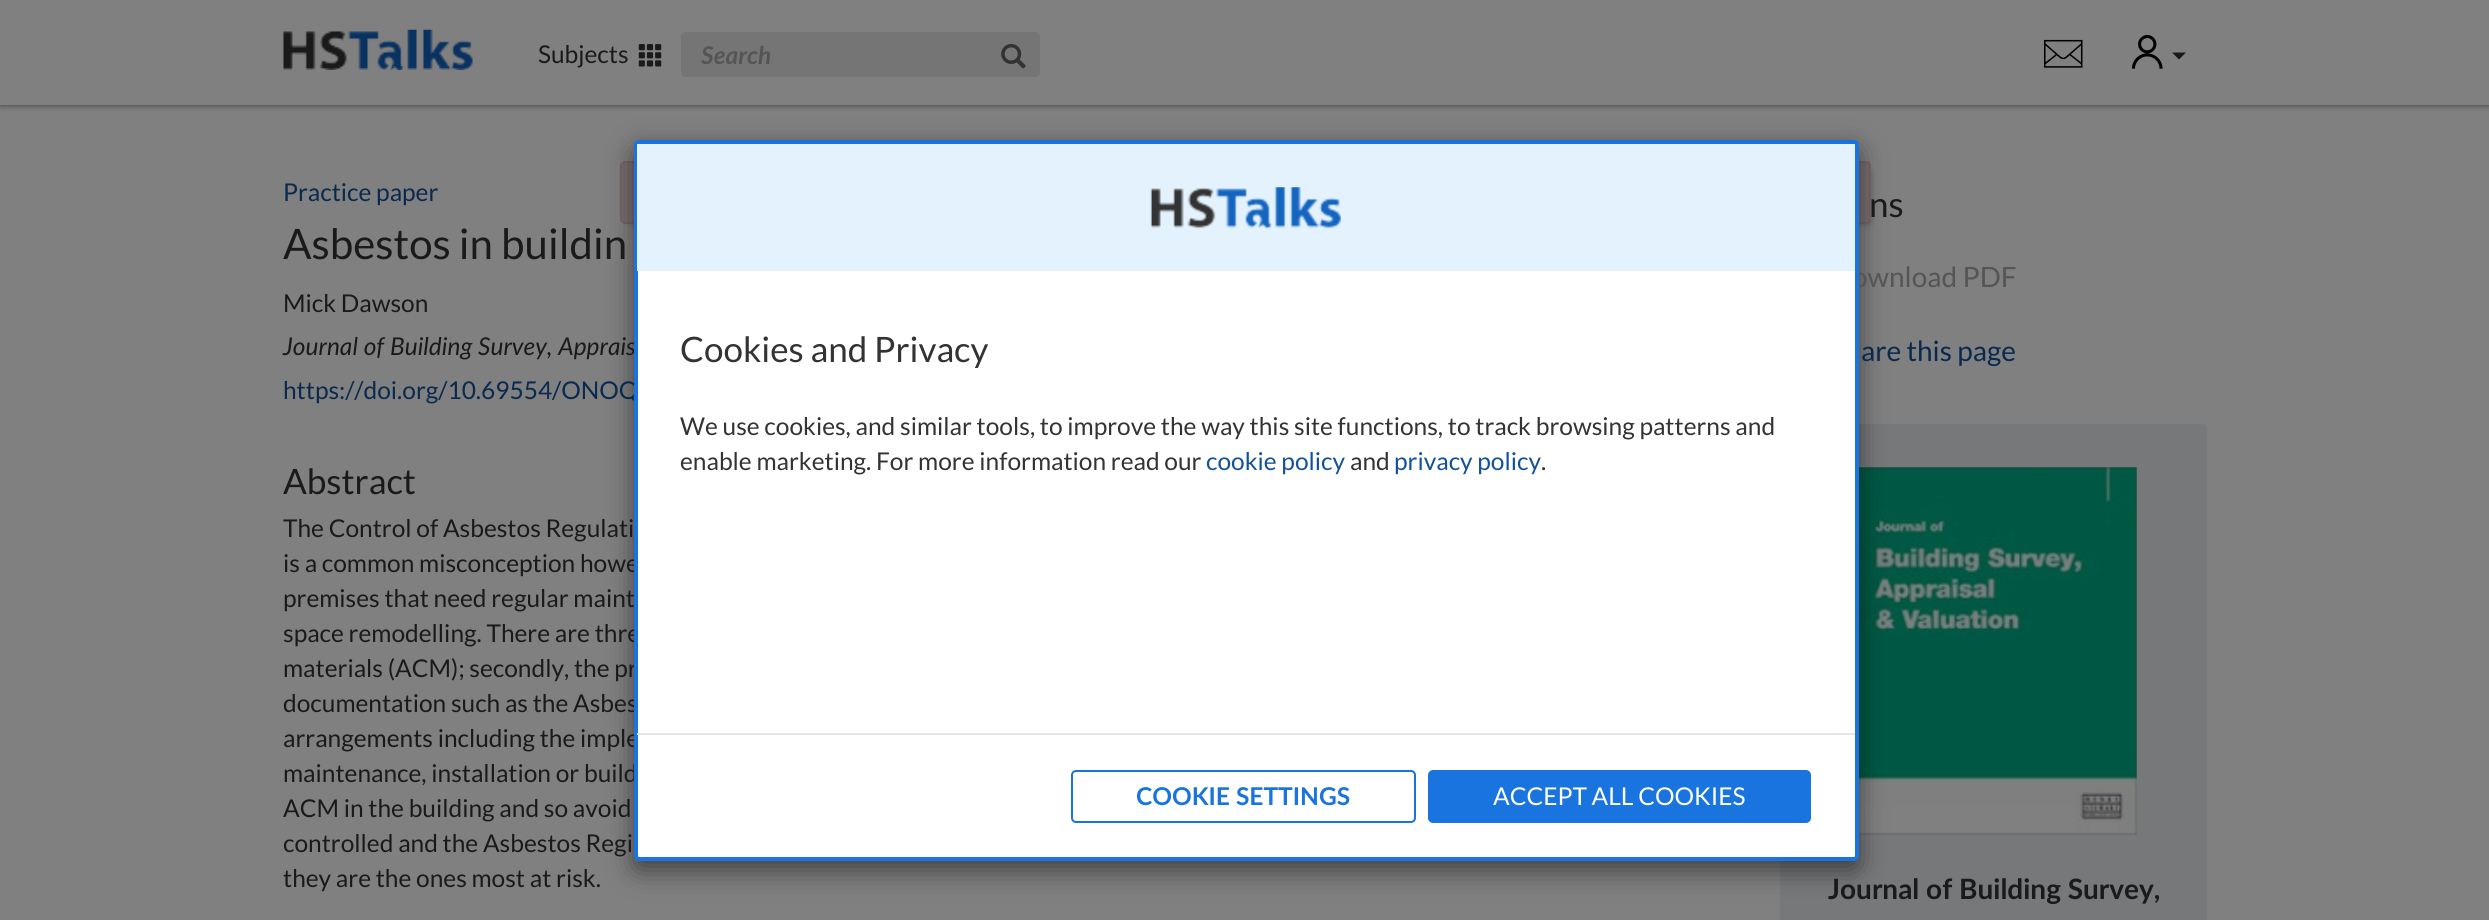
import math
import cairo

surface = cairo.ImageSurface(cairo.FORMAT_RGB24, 2489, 920)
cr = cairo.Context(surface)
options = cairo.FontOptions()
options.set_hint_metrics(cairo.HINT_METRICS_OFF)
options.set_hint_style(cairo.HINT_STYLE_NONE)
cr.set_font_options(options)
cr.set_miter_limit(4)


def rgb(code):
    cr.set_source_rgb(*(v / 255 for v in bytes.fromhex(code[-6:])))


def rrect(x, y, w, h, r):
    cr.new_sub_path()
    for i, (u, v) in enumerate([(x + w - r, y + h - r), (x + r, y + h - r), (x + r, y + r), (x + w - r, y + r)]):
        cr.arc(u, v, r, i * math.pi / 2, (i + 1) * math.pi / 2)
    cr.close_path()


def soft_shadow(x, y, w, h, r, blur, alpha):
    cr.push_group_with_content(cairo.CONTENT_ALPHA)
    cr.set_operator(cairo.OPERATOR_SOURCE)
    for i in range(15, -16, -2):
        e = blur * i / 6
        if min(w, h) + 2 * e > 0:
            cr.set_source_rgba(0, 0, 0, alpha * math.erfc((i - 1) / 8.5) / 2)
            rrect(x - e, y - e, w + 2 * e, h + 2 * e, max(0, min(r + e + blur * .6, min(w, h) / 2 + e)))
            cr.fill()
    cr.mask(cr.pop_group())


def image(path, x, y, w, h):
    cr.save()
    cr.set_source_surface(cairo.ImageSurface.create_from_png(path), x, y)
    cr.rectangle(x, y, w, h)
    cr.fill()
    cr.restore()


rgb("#808080")
cr.paint()
cr.save()
cr.rectangle(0, 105, 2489, 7)
cr.clip()
rgb("#3c3c3c")
soft_shadow(0, 0, 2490, 105, 0, 3.5, 1)
cr.restore()
image("img/1.png", 283, 29, 190, 41)
image("img/2.png", 638, 44, 24, 23)
rgb("#757575")
rrect(681, 32, 359, 45, 5)
cr.fill()
image("img/3.png", 1001, 43, 25, 26)
image("img/4.png", 2044, 39, 39, 29)
image("img/5.png", 2131, 35, 32, 34)
rgb("#1a1a1a")
cr.new_path()
cr.move_to(2172, 52.5)
cr.line_to(2186, 52.5)
cr.line_to(2179, 59.5)
cr.close_path()
cr.fill()
rgb("#000000")
soft_shadow(632, 173, 1237, 49, 0, 3.5, 0.4)
rgb("#796f6f")
rrect(621, 162, 1249, 61, 4)
cr.fill_preserve()
rgb("#766669")
cr.stroke()
rgb("#767879")
rrect(1780, 424, 427, 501, 5)
cr.fill()
image("img/6.png", 1859, 467, 278, 368)
rgb("#000000")
soft_shadow(634, 149, 1225, 721, 5, 13, 0.5)
cr.select_font_face("Lato")
cr.set_font_size(24.5)
rgb("#1a1a1a")
cr.move_to(538, 63)
cr.show_text("Subjects")
cr.select_font_face("Lato", cairo.FONT_SLANT_ITALIC, cairo.FONT_WEIGHT_BOLD)
rgb("#555555")
cr.move_to(701, 64)
cr.show_text("Search")
cr.select_font_face("Lato")
rgb("#09294e")
cr.move_to(283, 201)
cr.show_text("Practice paper")
cr.set_font_size(42)
rgb("#1a1a1a")
cr.move_to(283, 259)
cr.show_text("Asbestos in buildin")
cr.set_font_size(24.5)
cr.move_to(283, 312)
cr.show_text("Mick Dawson")
cr.select_font_face("Lato", cairo.FONT_SLANT_ITALIC)
cr.move_to(283, 355)
cr.show_text("Journal of Building Survey, Apprais")
cr.select_font_face("Lato")
rgb("#09294e")
cr.move_to(283, 399)
cr.show_text("https://doi.org/10.69554/ONOQ")
cr.set_font_size(35)
rgb("#1a1a1a")
cr.move_to(283, 494)
cr.show_text("Abstract")
cr.set_font_size(24.5)
for x, y, s in [
    (283, 537, "The Control of Asbestos Regulati"),
    (283, 572, "is a common misconception howe"),
    (283, 607, "premises that need regular maint"),
    (283, 642, "space remodelling. There are thre"),
    (283, 677, "materials (ACM); secondly, the pr"),
    (283, 712, "documentation such as the Asbes"),
    (283, 747, "arrangements including the imple"),
    (283, 782, "maintenance, installation or build"),
    (283, 817, "ACM in the building and so avoid"),
    (283, 852, "controlled and the Asbestos Regi"),
    (283, 887, "they are the ones most at risk."),
]:
    cr.move_to(x, y)
    cr.show_text(s)
cr.set_font_size(35)
cr.move_to(1869, 217)
cr.show_text("ns")
cr.set_font_size(28)
rgb("#555555")
cr.move_to(1852, 287)
cr.show_text("ownload PDF")
rgb("#09294e")
cr.move_to(1861, 361)
cr.show_text("are this page")
cr.select_font_face("Lato", cairo.FONT_SLANT_NORMAL, cairo.FONT_WEIGHT_BOLD)
rgb("#1a1a1a")
cr.move_to(1828, 899)
cr.show_text("Journal of Building Survey,")
rgb("#ffffff")
rrect(636, 142, 1221, 717, 3)
cr.fill_preserve()
rgb("#1974e0")
cr.set_line_width(4)
cr.stroke()
rgb("#e3f2fd")
cr.rectangle(637, 144, 1218, 127)
cr.fill()
image("img/7.png", 1150, 187, 191, 42)
cr.select_font_face("Lato")
cr.set_font_size(35)
rgb("#333333")
cr.move_to(680, 362)
cr.show_text("Cookies and Privacy")
cr.set_font_size(24.5)
cr.move_to(680, 435)
cr.show_text("We use cookies, and similar tools, to improve the way this site functions, to track browsing patterns and")
cr.move_to(680, 470)
cr.show_text("enable marketing. For more information read our")
rgb("#11529b")
cr.move_to(1206, 470)
cr.show_text("cookie policy")
rgb("#333333")
cr.move_to(1350, 470)
cr.show_text("and")
rgb("#11529b")
cr.move_to(1394, 470)
cr.show_text("privacy policy")
rgb("#333333")
cr.move_to(1541, 470)
cr.show_text(".")
rgb("#e5e5e5")
cr.rectangle(637, 733, 1218, 2)
cr.fill()
rrect(1072, 771, 343, 51, 4)
rgb("#1974e0")
cr.set_line_width(2)
cr.stroke()
cr.select_font_face("Lato", cairo.FONT_SLANT_NORMAL, cairo.FONT_WEIGHT_BOLD)
cr.move_to(1136, 805)
cr.show_text("COOKIE SETTINGS")
rrect(1429, 771, 381, 51, 4)
cr.fill_preserve()
cr.stroke()
cr.select_font_face("Lato")
rgb("#ffffff")
cr.move_to(1493, 805)
cr.show_text("ACCEPT ALL COOKIES")
surface.write_to_png("page.png")
